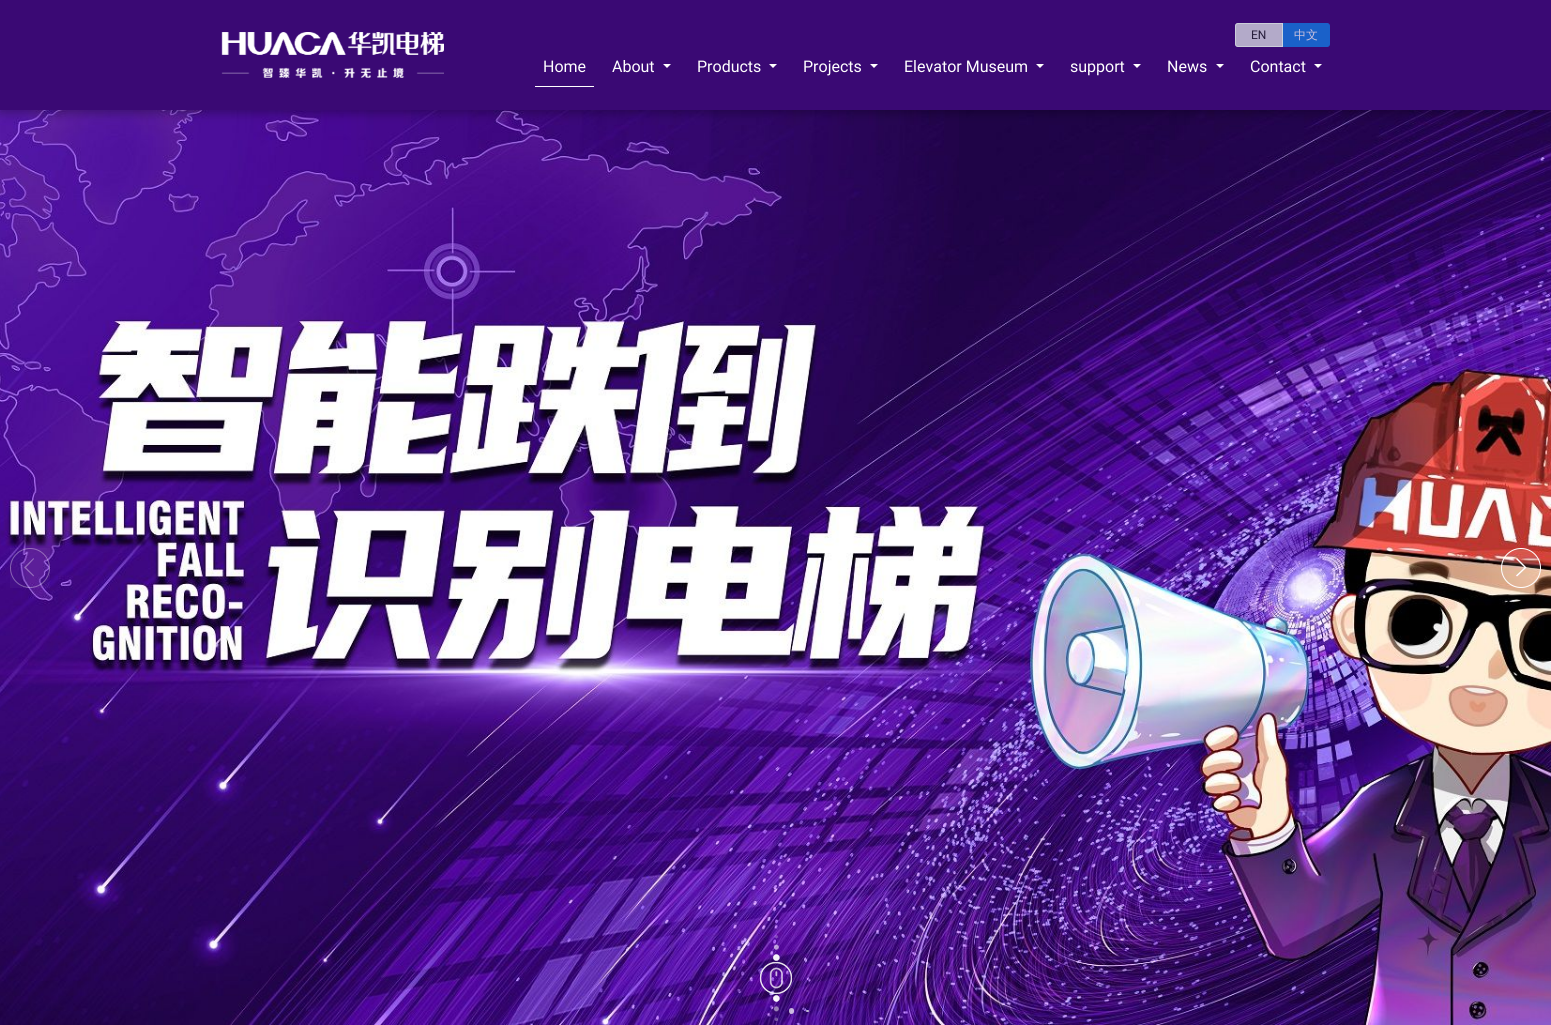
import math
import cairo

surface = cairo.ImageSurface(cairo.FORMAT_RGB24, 1551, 1025)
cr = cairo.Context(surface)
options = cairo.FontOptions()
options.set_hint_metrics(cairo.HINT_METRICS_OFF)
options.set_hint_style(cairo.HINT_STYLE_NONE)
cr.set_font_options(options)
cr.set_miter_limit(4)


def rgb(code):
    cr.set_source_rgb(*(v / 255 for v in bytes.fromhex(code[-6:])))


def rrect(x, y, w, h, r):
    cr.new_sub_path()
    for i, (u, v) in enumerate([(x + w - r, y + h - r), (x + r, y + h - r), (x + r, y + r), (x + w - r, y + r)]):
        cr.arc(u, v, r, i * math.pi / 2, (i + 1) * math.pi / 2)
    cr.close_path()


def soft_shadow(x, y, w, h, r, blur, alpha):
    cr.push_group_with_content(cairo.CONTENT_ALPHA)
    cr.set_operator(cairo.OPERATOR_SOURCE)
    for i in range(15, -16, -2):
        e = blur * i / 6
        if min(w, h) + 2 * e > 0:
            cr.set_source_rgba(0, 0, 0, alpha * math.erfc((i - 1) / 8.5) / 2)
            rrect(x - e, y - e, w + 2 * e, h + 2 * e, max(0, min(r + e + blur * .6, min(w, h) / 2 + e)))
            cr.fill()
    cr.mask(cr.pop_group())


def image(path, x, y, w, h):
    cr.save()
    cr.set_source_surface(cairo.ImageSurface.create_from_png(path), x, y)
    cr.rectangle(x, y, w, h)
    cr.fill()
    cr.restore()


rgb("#ffffff")
cr.paint()
image("img/2.png", 0, 110, 1551, 915)
rgb("#000000")
soft_shadow(0, 3, 1551, 110, 0, 5, 0.3)
rgb("#3a0974")
cr.rectangle(0, 0, 1551, 110)
cr.fill()
image("img/1.png", 221, 32, 223, 46)
rgb("#1a61c9")
cr.new_path()
cr.move_to(1282.5, 23.5)
cr.line_to(1327, 23.5)
cr.curve_to(1328.5, 23.5, 1329.5, 24.5, 1329.5, 26)
cr.line_to(1329.5, 44)
cr.curve_to(1329.5, 45.5, 1328.5, 46.5, 1327, 46.5)
cr.line_to(1282.5, 46.5)
cr.close_path()
cr.fill_preserve()
cr.set_line_width(1)
cr.stroke()
cr.set_source_rgba(0.855, 0.878, 0.898, 0.75)
cr.new_path()
cr.move_to(1238, 23)
cr.line_to(1283, 23)
cr.line_to(1283, 47)
cr.line_to(1238, 47)
cr.curve_to(1236.5, 47, 1235, 45.5, 1235, 44)
cr.line_to(1235, 26)
cr.curve_to(1235, 24.5, 1236.5, 23, 1238, 23)
cr.close_path()
cr.fill()
cr.new_path()
cr.move_to(1238, 23.5)
cr.line_to(1282.5, 23.5)
cr.line_to(1282.5, 46.5)
cr.line_to(1238, 46.5)
cr.curve_to(1236.5, 46.5, 1235.5, 45.5, 1235.5, 44)
cr.line_to(1235.5, 26)
cr.curve_to(1235.5, 24.5, 1236.5, 23.5, 1238, 23.5)
cr.close_path()
cr.set_source_rgba(0.827, 0.851, 0.875, 0.75)
cr.stroke()
rgb("#ffffff")
cr.rectangle(535, 86, 59, 1)
cr.fill()
cr.new_path()
cr.move_to(663, 64)
cr.line_to(671, 64)
cr.line_to(667, 68)
cr.close_path()
cr.fill()
cr.new_path()
cr.move_to(769, 64)
cr.line_to(777, 64)
cr.line_to(773, 68)
cr.close_path()
cr.fill()
cr.new_path()
cr.move_to(870, 64)
cr.line_to(878, 64)
cr.line_to(874, 68)
cr.close_path()
cr.fill()
cr.new_path()
cr.move_to(1036, 64)
cr.line_to(1044, 64)
cr.line_to(1040, 68)
cr.close_path()
cr.fill()
cr.new_path()
cr.move_to(1133, 64)
cr.line_to(1141, 64)
cr.line_to(1137, 68)
cr.close_path()
cr.fill()
cr.new_path()
cr.move_to(1216, 64)
cr.line_to(1224, 64)
cr.line_to(1220, 68)
cr.close_path()
cr.fill()
cr.new_path()
cr.move_to(1314, 64)
cr.line_to(1322, 64)
cr.line_to(1318, 68)
cr.close_path()
cr.fill()
cr.set_source_rgba(1, 1, 1, 0.03)
cr.rectangle(10, 548, 40, 40)
cr.fill()
cr.set_source_rgba(1, 1, 1, 0.35)
cr.new_path()
cr.move_to(24, 567.5)
cr.line_to(33.5, 558)
cr.line_to(34, 559)
cr.line_to(26, 567.5)
cr.line_to(34, 575.5)
cr.line_to(33.5, 576.5)
cr.close_path()
cr.fill()
cr.arc(30, 568, 19.5, 0, 2 * math.pi)
cr.stroke()
cr.set_source_rgba(1, 1, 1, 0.1)
cr.arc(1521, 568, 20, 0, 2 * math.pi)
cr.fill()
rgb("#ffffff")
cr.new_path()
cr.move_to(1526.5, 567.5)
cr.line_to(1517, 576.5)
cr.line_to(1516, 575.5)
cr.line_to(1524.5, 567.5)
cr.line_to(1516, 559)
cr.line_to(1517, 558)
cr.close_path()
cr.fill()
cr.arc(1521, 568, 19.5, 0, 2 * math.pi)
cr.stroke()
rgb("#3a0974")
cr.arc(776, 1011, 4, 0, 2 * math.pi)
cr.fill()
cr.set_source_rgba(1, 1, 1, 0.7)
rrect(789, 1008, 5, 6, 2.5)
cr.fill()
image("img/3.png", 760, 935, 32, 86)
rrect(806, 1010, 3, 2, 1)
cr.fill()
cr.select_font_face("Roboto")
cr.set_font_size(12)
rgb("#271e3c")
cr.move_to(1251, 39)
cr.show_text("EN")
cr.select_font_face("WenQuanYi Zen Hei Medium")
rgb("#cec2dc")
cr.move_to(1294, 39)
cr.show_text("中文")
cr.select_font_face("Roboto")
cr.set_font_size(16)
rgb("#ffffff")
for x, y, s in [
    (543, 72, "Home"),
    (612, 72, "About"),
    (697, 72, "Products"),
    (803, 72, "Projects"),
    (904, 72, "Elevator Museum"),
    (1070, 72, "support"),
    (1167, 72, "News"),
    (1250, 72, "Contact"),
]:
    cr.move_to(x, y)
    cr.show_text(s)
surface.write_to_png("page.png")
